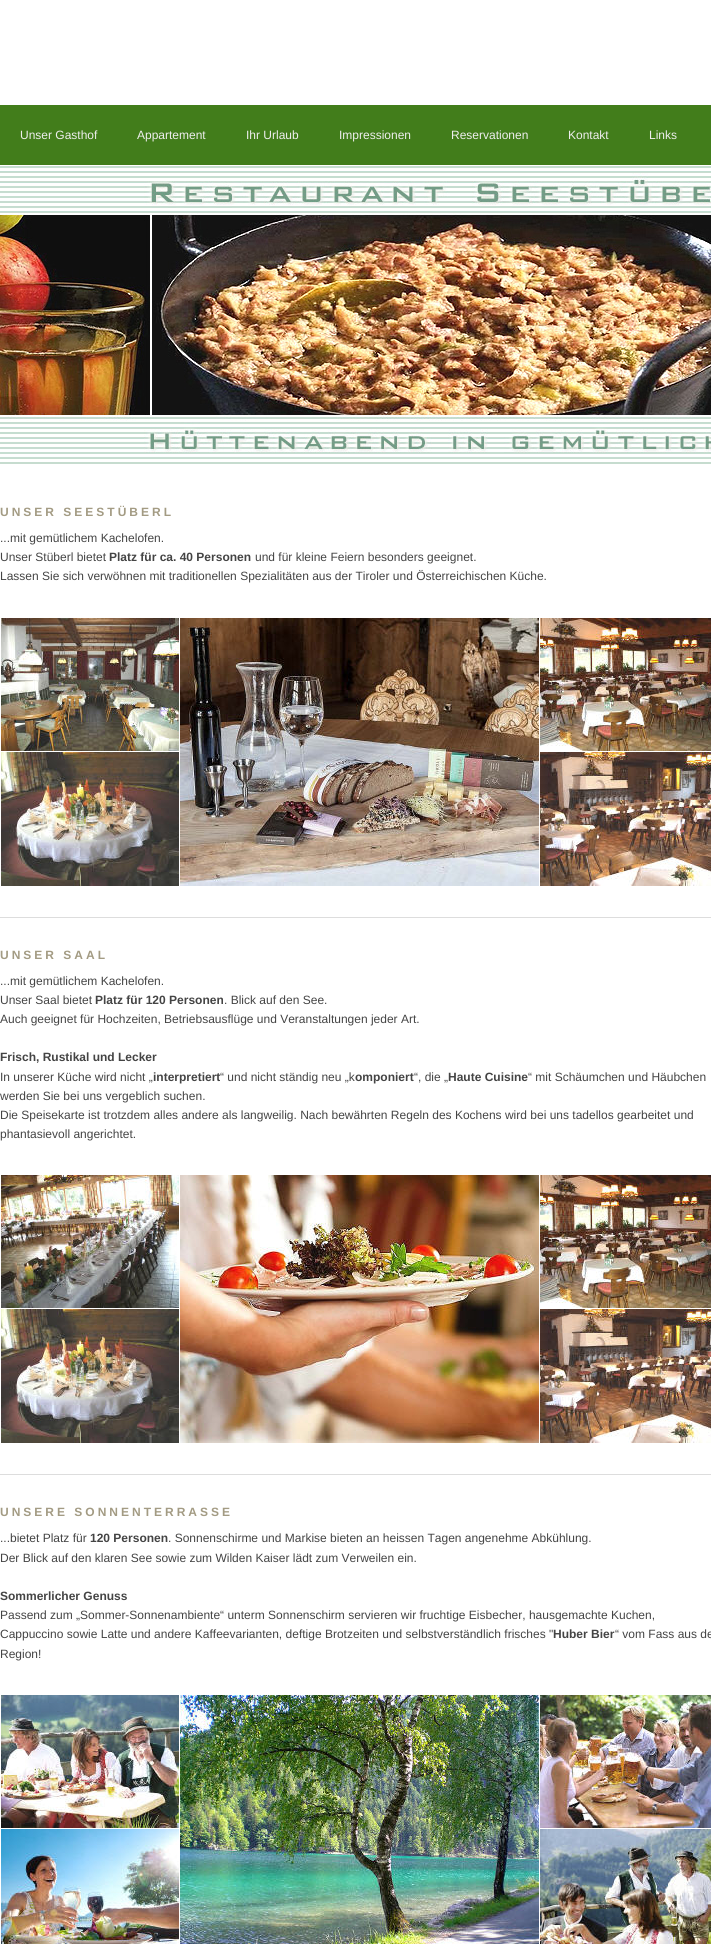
import math
import cairo

surface = cairo.ImageSurface(cairo.FORMAT_RGB24, 711, 1944)
cr = cairo.Context(surface)
options = cairo.FontOptions()
options.set_hint_metrics(cairo.HINT_METRICS_OFF)
options.set_hint_style(cairo.HINT_STYLE_NONE)
cr.set_font_options(options)
cr.set_miter_limit(4)


def rgb(code):
    cr.set_source_rgb(*(v / 255 for v in bytes.fromhex(code[-6:])))


def tracked(x, y, s, letter, word):
    cr.move_to(x, y)
    for ch in s:
        cr.show_text(ch)
        cr.rel_move_to(letter + word * (ch == ' '), 0)


def image(path, x, y, w, h):
    cr.save()
    cr.set_source_surface(cairo.ImageSurface.create_from_png(path), x, y)
    cr.rectangle(x, y, w, h)
    cr.fill()
    cr.restore()


rgb("#ffffff")
cr.paint()
rgb("#427d1b")
cr.rectangle(0, 105, 711, 60)
cr.fill()
image("img/1.png", 0, 165, 711, 300)
image("img/2.png", 1, 618, 178, 133)
image("img/3.png", 180, 618, 359, 268)
image("img/4.png", 540, 618, 171, 133)
image("img/5.png", 1, 752, 178, 134)
image("img/6.png", 540, 752, 171, 134)
rgb("#dddddd")
cr.rectangle(0, 917, 711, 1)
cr.fill()
image("img/7.png", 1, 1175, 178, 133)
image("img/8.png", 180, 1175, 359, 268)
image("img/4.png", 540, 1175, 171, 133)
image("img/5.png", 1, 1309, 178, 134)
image("img/6.png", 540, 1309, 171, 134)
cr.rectangle(0, 1474, 711, 1)
cr.fill()
image("img/9.png", 1, 1695, 178, 133)
image("img/10.png", 180, 1695, 359, 249)
image("img/11.png", 540, 1695, 171, 133)
image("img/12.png", 1, 1829, 178, 115)
image("img/13.png", 540, 1829, 171, 115)
cr.select_font_face("Liberation Sans")
cr.set_font_size(12)
rgb("#eeeeee")
for x, y, s in [
    (20, 139, "Unser Gasthof"),
    (137, 139, "Appartement"),
    (246, 139, "Ihr Urlaub"),
    (339, 139, "Impressionen"),
    (451, 139, "Reservationen"),
    (568, 139, "Kontakt"),
    (649, 139, "Links"),
]:
    cr.move_to(x, y)
    cr.show_text(s)
cr.select_font_face("Liberation Sans", cairo.FONT_SLANT_NORMAL, cairo.FONT_WEIGHT_BOLD)
rgb("#a39b83")
tracked(0, 516, "UNSER SEESTÜBERL", 3, 0)
cr.select_font_face("Liberation Sans")
rgb("#444444")
cr.move_to(0, 542)
cr.show_text("...mit gemütlichem Kachelofen.")
cr.move_to(0, 561)
cr.show_text("Unser Stüberl bietet")
cr.select_font_face("Liberation Sans", cairo.FONT_SLANT_NORMAL, cairo.FONT_WEIGHT_BOLD)
cr.move_to(109, 561)
cr.show_text("Platz für ca. 40 Personen")
cr.select_font_face("Liberation Sans")
cr.move_to(255, 561)
cr.show_text("und für kleine Feiern besonders geeignet.")
cr.move_to(0, 580)
cr.show_text("Lassen Sie sich verwöhnen mit traditionellen Spezialitäten aus der Tiroler und Österreichischen Küche.")
cr.select_font_face("Liberation Sans", cairo.FONT_SLANT_NORMAL, cairo.FONT_WEIGHT_BOLD)
rgb("#a39b83")
tracked(0, 959, "UNSER SAAL", 3, 0)
cr.select_font_face("Liberation Sans")
rgb("#444444")
cr.move_to(0, 985)
cr.show_text("...mit gemütlichem Kachelofen.")
cr.move_to(0, 1004)
cr.show_text("Unser Saal bietet")
cr.select_font_face("Liberation Sans", cairo.FONT_SLANT_NORMAL, cairo.FONT_WEIGHT_BOLD)
cr.move_to(95, 1004)
cr.show_text("Platz für 120 Personen")
cr.select_font_face("Liberation Sans")
cr.move_to(224, 1004)
cr.show_text(". Blick auf den See.")
cr.move_to(0, 1023)
cr.show_text("Auch geeignet für Hochzeiten, Betriebsausflüge und Veranstaltungen jeder Art.")
cr.select_font_face("Liberation Sans", cairo.FONT_SLANT_NORMAL, cairo.FONT_WEIGHT_BOLD)
cr.move_to(0, 1061)
cr.show_text("Frisch, Rustikal und Lecker")
cr.select_font_face("Liberation Sans")
cr.move_to(0, 1081)
cr.show_text("In unserer Küche wird nicht „")
cr.select_font_face("Liberation Sans", cairo.FONT_SLANT_NORMAL, cairo.FONT_WEIGHT_BOLD)
cr.move_to(153, 1081)
cr.show_text("interpretiert")
cr.select_font_face("Liberation Sans")
cr.move_to(220, 1081)
cr.show_text("“ und nicht ständig neu „k")
cr.select_font_face("Liberation Sans", cairo.FONT_SLANT_NORMAL, cairo.FONT_WEIGHT_BOLD)
cr.move_to(355, 1081)
cr.show_text("omponiert")
cr.select_font_face("Liberation Sans")
cr.move_to(414, 1081)
cr.show_text("“, die „")
cr.select_font_face("Liberation Sans", cairo.FONT_SLANT_NORMAL, cairo.FONT_WEIGHT_BOLD)
cr.move_to(448, 1081)
cr.show_text("Haute Cuisine")
cr.select_font_face("Liberation Sans")
for x, y, s in [
    (528, 1081, "“ mit Schäumchen und Häubchen"),
    (0, 1100, "werden Sie bei uns vergeblich suchen."),
    (0, 1119, "Die Speisekarte ist trotzdem alles andere als langweilig. Nach bewährten Regeln des Kochens wird bei uns tadellos gearbeitet und"),
    (0, 1138, "phantasievoll angerichtet."),
]:
    cr.move_to(x, y)
    cr.show_text(s)
cr.select_font_face("Liberation Sans", cairo.FONT_SLANT_NORMAL, cairo.FONT_WEIGHT_BOLD)
rgb("#a39b83")
tracked(0, 1516, "UNSERE SONNENTERRASSE", 3, 0)
cr.select_font_face("Liberation Sans")
rgb("#444444")
cr.move_to(0, 1542)
cr.show_text("...bietet Platz für")
cr.select_font_face("Liberation Sans", cairo.FONT_SLANT_NORMAL, cairo.FONT_WEIGHT_BOLD)
cr.move_to(90, 1542)
cr.show_text("120 Personen")
cr.select_font_face("Liberation Sans")
cr.move_to(168, 1542)
cr.show_text(". Sonnenschirme und Markise bieten an heissen Tagen angenehme Abkühlung.")
cr.move_to(0, 1562)
cr.show_text("Der Blick auf den klaren See sowie zum Wilden Kaiser lädt zum Verweilen ein.")
cr.select_font_face("Liberation Sans", cairo.FONT_SLANT_NORMAL, cairo.FONT_WEIGHT_BOLD)
cr.move_to(0, 1600)
cr.show_text("Sommerlicher Genuss")
cr.select_font_face("Liberation Sans")
cr.move_to(0, 1619)
cr.show_text("Passend zum „Sommer-Sonnenambiente“ unterm Sonnenschirm servieren wir fruchtige Eisbecher, hausgemachte Kuchen,")
cr.move_to(0, 1638)
cr.show_text("Cappuccino sowie Latte und andere Kaffeevarianten, deftige Brotzeiten und selbstverständlich frisches \"")
cr.select_font_face("Liberation Sans", cairo.FONT_SLANT_NORMAL, cairo.FONT_WEIGHT_BOLD)
cr.move_to(553, 1638)
cr.show_text("Huber Bier")
cr.select_font_face("Liberation Sans")
cr.move_to(615, 1638)
cr.show_text("“ vom Fass aus de")
cr.move_to(0, 1658)
cr.show_text("Region!")
surface.write_to_png("page.png")
